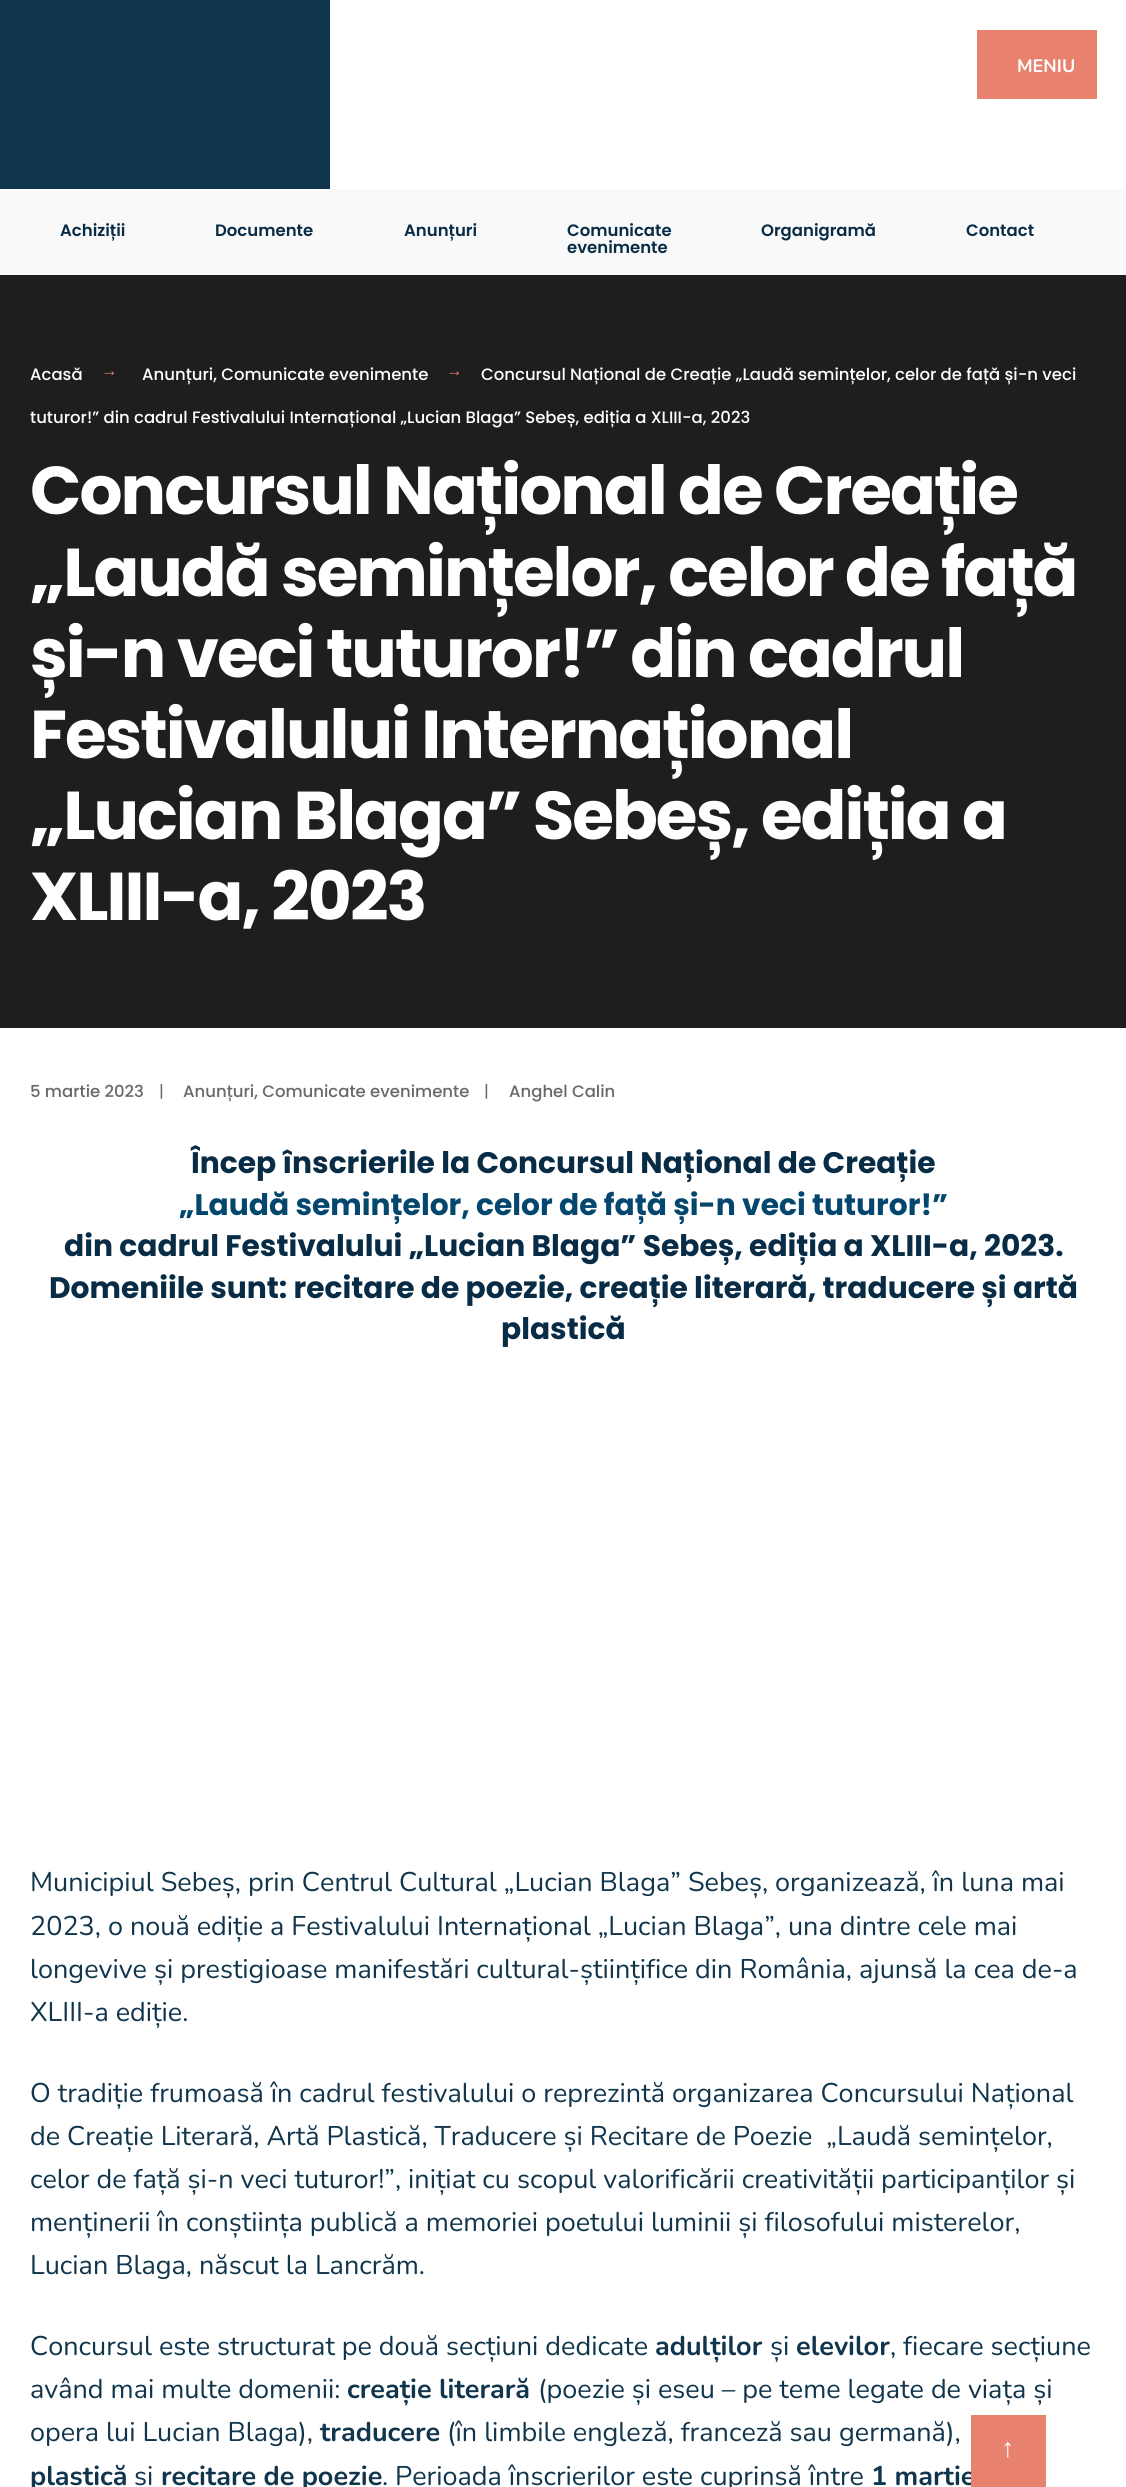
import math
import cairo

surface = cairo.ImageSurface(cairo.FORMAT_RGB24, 1126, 2487)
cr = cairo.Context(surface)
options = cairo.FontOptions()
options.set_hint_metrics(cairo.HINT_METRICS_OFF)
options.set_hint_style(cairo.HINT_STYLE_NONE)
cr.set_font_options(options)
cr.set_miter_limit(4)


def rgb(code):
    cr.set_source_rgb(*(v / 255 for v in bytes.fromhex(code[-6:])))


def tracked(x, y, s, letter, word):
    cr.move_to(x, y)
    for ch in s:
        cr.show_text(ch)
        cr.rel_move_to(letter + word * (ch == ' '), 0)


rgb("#ffffff")
cr.paint()
for x, y, w, h, color in [
    (0, 0, 330, 189, "#10354c"),
    (977, 30, 120, 69, "#e8816e"),
    (0, 189, 1126, 86, "#f9f9f9"),
    (0, 275, 1126, 753, "#1e1e1e"),
]:
    rgb(color)
    cr.rectangle(x, y, w, h)
    cr.fill()
cr.select_font_face("Nunito", cairo.FONT_SLANT_NORMAL, cairo.FONT_WEIGHT_BOLD)
cr.set_font_size(18)
rgb("#ffffff")
cr.move_to(1017, 72)
cr.show_text("MENIU")
cr.select_font_face("Poppins SemiBold")
cr.set_font_size(16.5)
rgb("#082c45")
for x, y, s in [
    (60, 236, "Achiziții"),
    (215, 236, "Documente"),
    (404, 236, "Anunțuri"),
    (567, 236, "Comunicate"),
    (567, 253, "evenimente"),
    (761, 236, "Organigramă"),
    (966, 236, "Contact"),
]:
    cr.move_to(x, y)
    cr.show_text(s)
cr.select_font_face("Poppins Medium")
rgb("#ffffff")
cr.move_to(30, 380)
cr.show_text("Acasă")
cr.select_font_face("Liberation Serif")
rgb("#e8816e")
cr.move_to(101, 376)
cr.show_text("→")
cr.select_font_face("Poppins Medium")
rgb("#ffffff")
cr.move_to(142, 380)
cr.show_text("Anunțuri, Comunicate evenimente")
cr.select_font_face("Liberation Serif")
rgb("#e8816e")
cr.move_to(446, 376)
cr.show_text("→")
cr.select_font_face("Poppins Medium")
rgb("#ffffff")
cr.move_to(481, 380)
cr.show_text("Concursul Național de Creație „Laudă semințelor, celor de față și-n veci")
cr.move_to(30, 423)
cr.show_text("tuturor!” din cadrul Festivalului Internațional „Lucian Blaga” Sebeș, ediția a XLIII-a, 2023")
cr.select_font_face("Poppins", cairo.FONT_SLANT_NORMAL, cairo.FONT_WEIGHT_BOLD)
cr.set_font_size(67.6)
for x, y, s in [
    (30, 514, "Concursul Național de Creație"),
    (30, 596, "„Laudă semințelor, celor de față"),
    (30, 677, "și-n veci tuturor!” din cadrul"),
    (30, 758, "Festivalului Internațional"),
    (30, 839, "„Lucian Blaga” Sebeș, ediția a"),
    (30, 920, "XLIII-a, 2023"),
]:
    tracked(x, y, s, -2, 0)
cr.select_font_face("Poppins Medium")
cr.set_font_size(16.5)
rgb("#686868")
cr.move_to(30, 1097)
cr.show_text("5 martie 2023")
cr.select_font_face("Poppins")
cr.move_to(159, 1097)
cr.show_text("|")
cr.select_font_face("Poppins Medium")
cr.move_to(183, 1097)
cr.show_text("Anunțuri, Comunicate evenimente")
cr.select_font_face("Poppins")
cr.move_to(484, 1097)
cr.show_text("|")
cr.select_font_face("Poppins Medium")
cr.move_to(509, 1097)
cr.show_text("Anghel Calin")
cr.select_font_face("Poppins", cairo.FONT_SLANT_NORMAL, cairo.FONT_WEIGHT_BOLD)
cr.set_font_size(29.7)
rgb("#082c45")
cr.move_to(191, 1173)
cr.show_text("Încep înscrierile la Concursul Național de Creație")
rgb("#04476e")
cr.move_to(179, 1215)
cr.show_text("„Laudă semințelor, celor de față și-n veci tuturor!”")
rgb("#082c45")
for x, y, s in [
    (64, 1256, "din cadrul Festivalului „Lucian Blaga” Sebeș, ediția a XLIII-a, 2023."),
    (49, 1298, "Domeniile sunt: recitare de poezie, creație literară, traducere și artă"),
    (501, 1339, "plastică"),
]:
    cr.move_to(x, y)
    cr.show_text(s)
cr.select_font_face("Nunito")
cr.set_font_size(27)
rgb("#10354c")
for x, y, s in [
    (30, 1891, "Municipiul Sebeș, prin Centrul Cultural „Lucian Blaga” Sebeș, organizează, în luna mai"),
    (30, 1935, "2023, o nouă ediție a Festivalului Internațional „Lucian Blaga”, una dintre cele mai"),
    (30, 1978, "longevive și prestigioase manifestări cultural-științifice din România, ajunsă la cea de-a"),
    (30, 2021, "XLIII-a ediție."),
    (30, 2102, "O tradiție frumoasă în cadrul festivalului o reprezintă organizarea Concursului Național"),
    (30, 2145, "de Creație Literară, Artă Plastică, Traducere și Recitare de Poezie  „Laudă semințelor,"),
    (30, 2188, "celor de față și-n veci tuturor!”, inițiat cu scopul valorificării creativității participanților și"),
    (30, 2231, "menținerii în conștiința publică a memoriei poetului luminii și filosofului misterelor,"),
    (30, 2274, "Lucian Blaga, născut la Lancrăm."),
    (30, 2355, "Concursul este structurat pe două secțiuni dedicate"),
]:
    cr.move_to(x, y)
    cr.show_text(s)
cr.select_font_face("Nunito", cairo.FONT_SLANT_NORMAL, cairo.FONT_WEIGHT_BOLD)
cr.move_to(655, 2355)
cr.show_text("adulților")
cr.select_font_face("Nunito")
cr.move_to(770, 2355)
cr.show_text("și")
cr.select_font_face("Nunito", cairo.FONT_SLANT_NORMAL, cairo.FONT_WEIGHT_BOLD)
cr.move_to(796, 2355)
cr.show_text("elevilor")
cr.select_font_face("Nunito")
cr.move_to(890, 2355)
cr.show_text(", fiecare secțiune")
cr.move_to(30, 2398)
cr.show_text("având mai multe domenii:")
cr.select_font_face("Nunito", cairo.FONT_SLANT_NORMAL, cairo.FONT_WEIGHT_BOLD)
cr.move_to(347, 2398)
cr.show_text("creație literară")
cr.select_font_face("Nunito")
cr.move_to(538, 2398)
cr.show_text("(poezie și eseu – pe teme legate de viața și")
cr.move_to(30, 2441)
cr.show_text("opera lui Lucian Blaga),")
cr.select_font_face("Nunito", cairo.FONT_SLANT_NORMAL, cairo.FONT_WEIGHT_BOLD)
cr.move_to(320, 2441)
cr.show_text("traducere")
cr.select_font_face("Nunito")
cr.move_to(447, 2441)
cr.show_text("(în limbile engleză, franceză sau germană),")
cr.select_font_face("Nunito", cairo.FONT_SLANT_NORMAL, cairo.FONT_WEIGHT_BOLD)
cr.move_to(30, 2485)
cr.show_text("plastică")
cr.select_font_face("Nunito")
cr.move_to(134, 2485)
cr.show_text("și")
cr.select_font_face("Nunito", cairo.FONT_SLANT_NORMAL, cairo.FONT_WEIGHT_BOLD)
cr.move_to(161, 2485)
cr.show_text("recitare de poezie")
cr.select_font_face("Nunito")
cr.move_to(382, 2485)
cr.show_text(". Perioada înscrierilor este cuprinsă între")
cr.select_font_face("Nunito", cairo.FONT_SLANT_NORMAL, cairo.FONT_WEIGHT_BOLD)
cr.move_to(871, 2485)
cr.show_text("1 martie")
rgb("#e8816e")
cr.rectangle(971, 2415, 75, 72)
cr.fill()
cr.select_font_face("Liberation Serif")
rgb("#ffffff")
cr.move_to(1001, 2457)
cr.show_text("↑")
surface.write_to_png("page.png")
